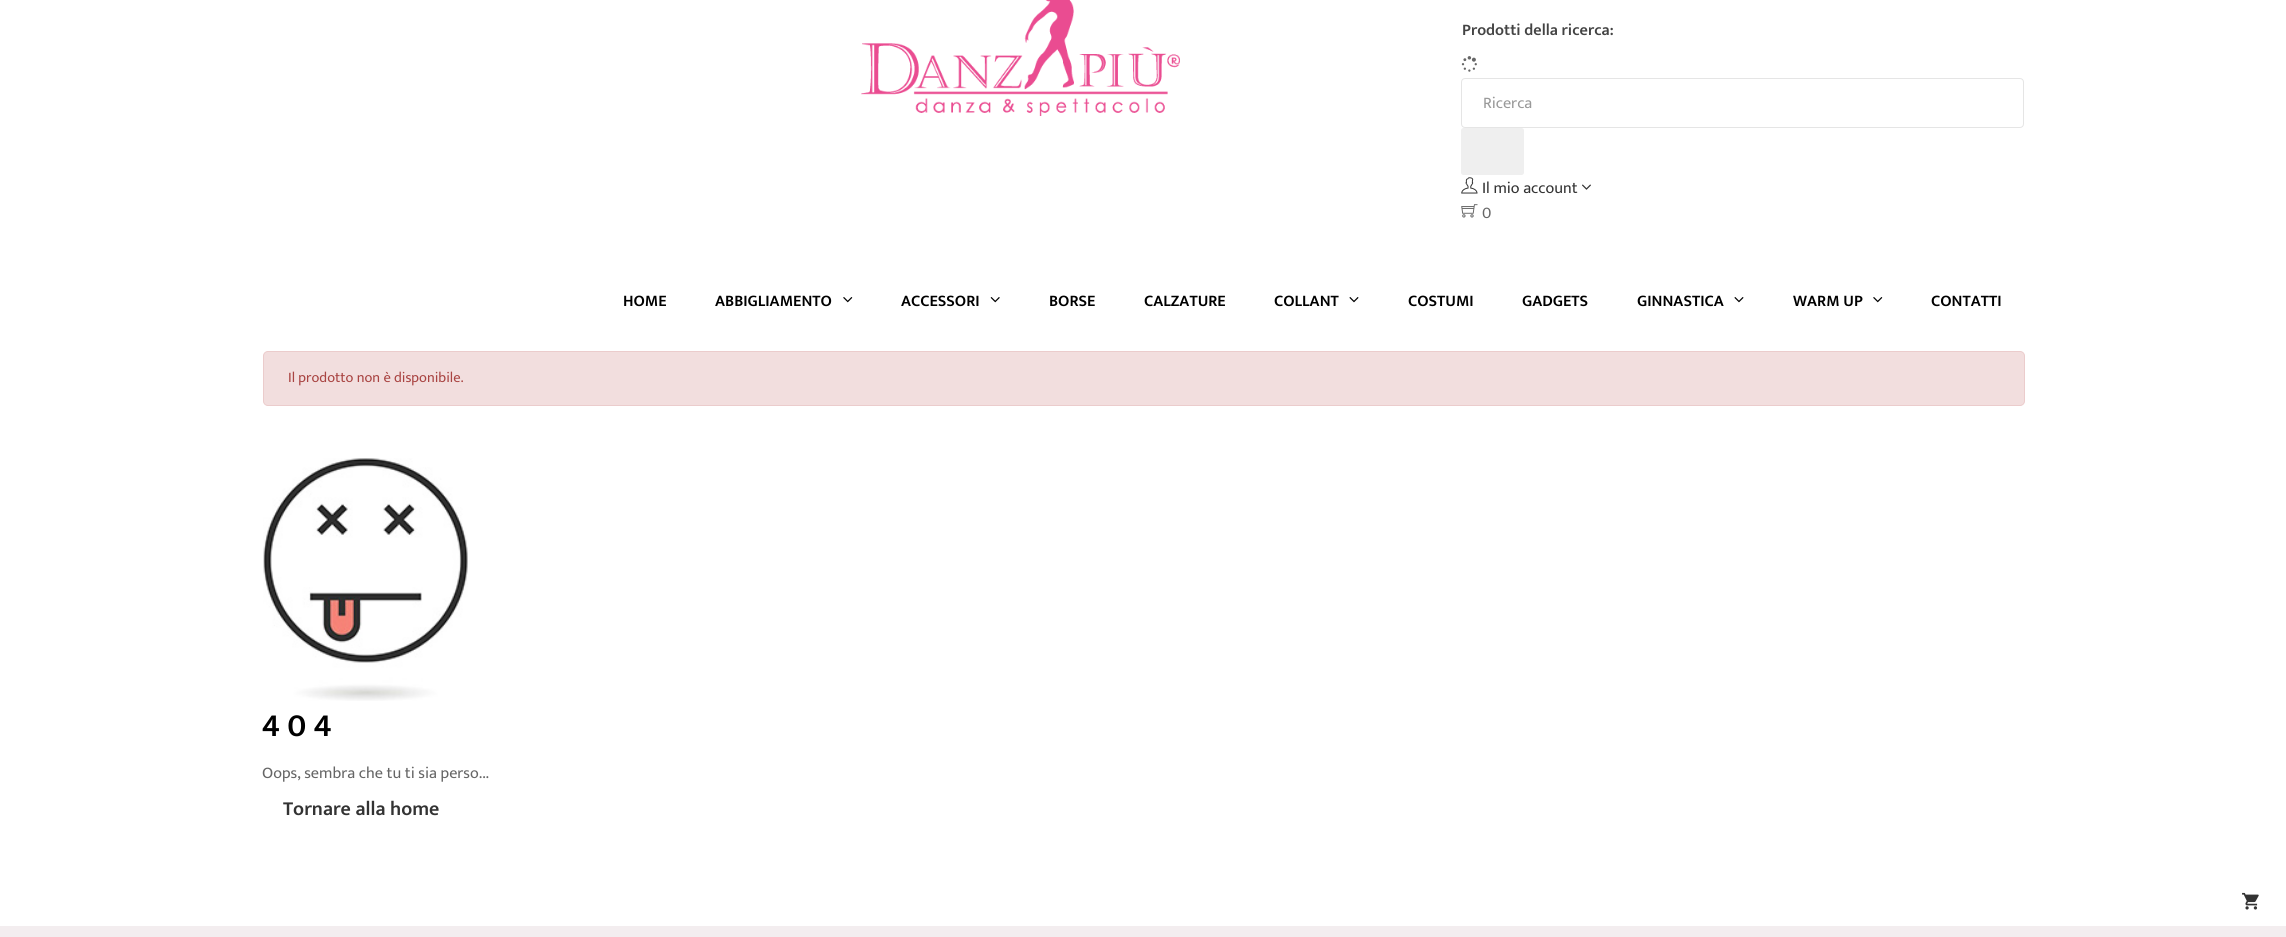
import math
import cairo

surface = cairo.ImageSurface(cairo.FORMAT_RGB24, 2286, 937)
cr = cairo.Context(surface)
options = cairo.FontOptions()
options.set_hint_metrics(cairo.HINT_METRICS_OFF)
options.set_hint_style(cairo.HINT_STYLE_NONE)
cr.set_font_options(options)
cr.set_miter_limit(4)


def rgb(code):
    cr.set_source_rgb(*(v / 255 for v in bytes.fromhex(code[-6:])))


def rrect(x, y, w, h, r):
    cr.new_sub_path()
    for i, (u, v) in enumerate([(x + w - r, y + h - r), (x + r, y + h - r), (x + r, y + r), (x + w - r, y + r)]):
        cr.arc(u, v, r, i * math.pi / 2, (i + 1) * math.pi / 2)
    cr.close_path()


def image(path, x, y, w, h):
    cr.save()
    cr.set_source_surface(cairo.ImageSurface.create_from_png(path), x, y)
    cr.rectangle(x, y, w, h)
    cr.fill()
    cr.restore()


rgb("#ffffff")
cr.paint()
image("img/1.png", 861, 0, 319, 116)
image("img/2.png", 1461, 56, 16, 16)
rrect(1461.5, 78.5, 562, 49, 3.5)
rgb("#e5e5e5")
cr.set_line_width(1)
cr.stroke()
rgb("#efefef")
rrect(1461, 128, 63, 47, 2.5)
cr.fill()
image("img/3.png", 1461, 177, 17, 17)
image("img/4.png", 1582, 184, 9, 6)
image("img/5.png", 1461, 204, 17, 14)
image("img/6.png", 843, 297, 10, 6)
image("img/7.png", 990, 297, 10, 6)
image("img/8.png", 1349, 297, 10, 6)
image("img/8.png", 1734, 297, 10, 6)
image("img/6.png", 1873, 297, 10, 6)
rgb("#f2dede")
rrect(263.5, 351.5, 1761, 54, 4.5)
cr.fill_preserve()
rgb("#ebcccc")
cr.stroke()
image("img/9.png", 263, 458, 205, 243)
rgb("#f3edef")
cr.rectangle(0, 926, 2286, 11)
cr.fill()
image("img/10.png", 2242, 892, 17, 18)
cr.select_font_face("Ek Mukta SemiBold")
cr.set_font_size(16.25)
rgb("#444444")
cr.move_to(1462, 35)
cr.show_text("Prodotti della ricerca:")
cr.select_font_face("Ek Mukta")
rgb("#999999")
cr.move_to(1483, 108)
cr.show_text("Ricerca")
rgb("#333333")
cr.move_to(1482, 193)
cr.show_text("Il mio account")
rgb("#666666")
cr.move_to(1482, 218)
cr.show_text("0")
cr.select_font_face("Ek Mukta SemiBold")
rgb("#000000")
for x, y, s in [
    (623, 306, "HOME"),
    (715, 306, "ABBIGLIAMENTO"),
    (901, 306, "ACCESSORI"),
    (1049, 306, "BORSE"),
    (1144, 306, "CALZATURE"),
    (1274, 306, "COLLANT"),
    (1408, 306, "COSTUMI"),
    (1522, 306, "GADGETS"),
    (1637, 306, "GINNASTICA"),
    (1793, 306, "WARM UP"),
    (1931, 306, "CONTATTI"),
]:
    cr.move_to(x, y)
    cr.show_text(s)
cr.select_font_face("Ek Mukta")
cr.set_font_size(14.6)
rgb("#a94442")
cr.move_to(288, 382)
cr.show_text("Il prodotto non è disponibile.")
cr.select_font_face("Ek Mukta SemiBold")
cr.set_font_size(32.5)
rgb("#000000")
cr.move_to(262, 736)
cr.show_text("4 0 4")
cr.select_font_face("Ek Mukta")
cr.set_font_size(16.25)
rgb("#666666")
cr.move_to(262, 778)
cr.show_text("Oops, sembra che tu ti sia perso...")
cr.select_font_face("Ek Mukta SemiBold")
cr.set_font_size(20)
rgb("#333333")
cr.move_to(283, 815)
cr.show_text("Tornare alla home")
surface.write_to_png("page.png")
